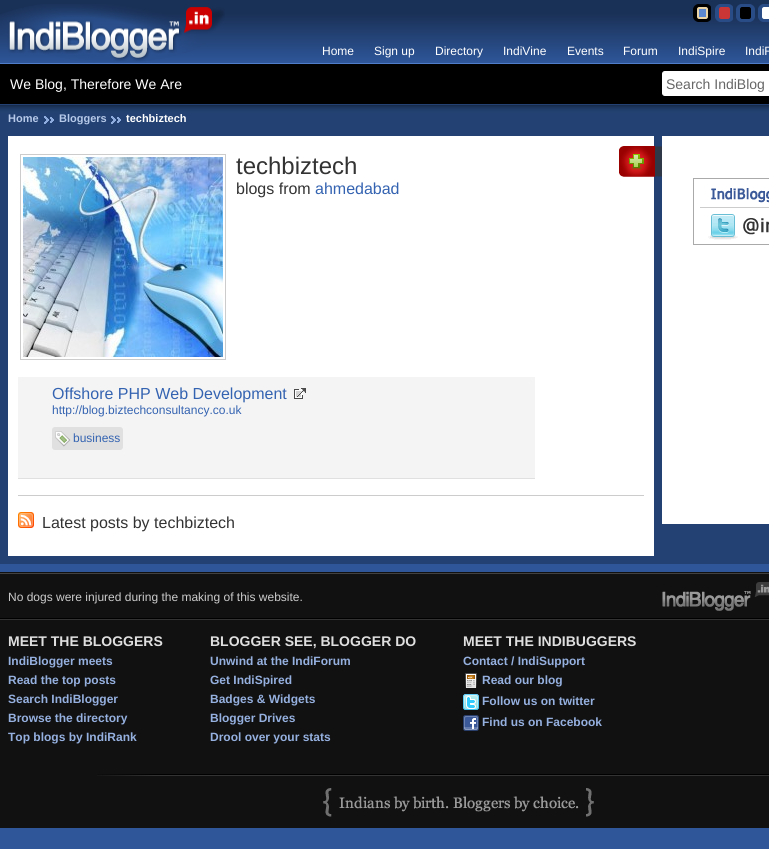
import math
import cairo

surface = cairo.ImageSurface(cairo.FORMAT_RGB24, 769, 849)
cr = cairo.Context(surface)
options = cairo.FontOptions()
options.set_hint_metrics(cairo.HINT_METRICS_OFF)
options.set_hint_style(cairo.HINT_STYLE_NONE)
cr.set_font_options(options)
cr.set_miter_limit(4)


def rgb(code):
    cr.set_source_rgb(*(v / 255 for v in bytes.fromhex(code[-6:])))


def rrect(x, y, w, h, r):
    cr.new_sub_path()
    for i, (u, v) in enumerate([(x + w - r, y + h - r), (x + r, y + h - r), (x + r, y + r), (x + w - r, y + r)]):
        cr.arc(u, v, r, i * math.pi / 2, (i + 1) * math.pi / 2)
    cr.close_path()


def image(path, x, y, w, h):
    cr.save()
    cr.set_source_surface(cairo.ImageSurface.create_from_png(path), x, y)
    cr.rectangle(x, y, w, h)
    cr.fill()
    cr.restore()


rgb("#2e5698")
cr.paint()
image("img/1.png", 0, 0, 769, 128)
image("img/2.png", 0, 4, 225, 58)
image("img/3.png", 693, 4, 18, 18)
image("img/4.png", 715, 4, 18, 18)
image("img/5.png", 736, 4, 19, 18)
image("img/6.png", 758, 4, 11, 18)
rgb("#ffffff")
cr.new_path()
cr.move_to(665, 71.5)
cr.line_to(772.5, 71.5)
cr.line_to(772.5, 95.5)
cr.line_to(665, 95.5)
cr.curve_to(663.5, 95.5, 662.5, 94.5, 662.5, 93)
cr.line_to(662.5, 74)
cr.curve_to(662.5, 72.5, 663.5, 71.5, 665, 71.5)
cr.close_path()
cr.fill_preserve()
cr.set_line_width(1)
cr.stroke()
image("img/7.png", 44, 116, 10, 8)
image("img/7.png", 111, 116, 10, 8)
rgb("#234273")
cr.rectangle(0, 128, 769, 436)
cr.fill()
rgb("#ffffff")
cr.rectangle(8, 136, 646, 420)
cr.fill()
cr.rectangle(20.5, 154.5, 205, 205)
rgb("#cccccc")
cr.stroke()
image("img/8.png", 23, 157, 200, 200)
image("img/9.png", 619, 146, 43, 31)
rgb("#f4f4f4")
cr.rectangle(18, 377, 517, 101)
cr.fill()
rgb("#e0e0e0")
cr.rectangle(18, 478, 517, 1)
cr.fill()
image("img/10.png", 294, 388, 12, 11)
rrect(52, 427, 71, 23, 3)
cr.fill()
image("img/11.png", 55, 431, 16, 16)
rgb("#cccccc")
cr.rectangle(18, 495, 626, 1)
cr.fill()
image("img/12.png", 18, 512, 16, 16)
rgb("#ffffff")
cr.rectangle(662, 136, 107, 388)
cr.fill()
image("img/13.png", 693, 178, 76, 67)
rgb("#111111")
cr.rectangle(0, 572, 769, 256)
cr.fill()
image("img/14.png", 0, 573, 769, 47)
image("img/15.png", 97, 774, 672, 43)
image("img/16.png", 662, 582, 107, 29)
image("img/17.png", 465, 673, 12, 15)
image("img/18.png", 463, 694, 16, 16)
image("img/19.png", 463, 715, 16, 16)
cr.select_font_face("Liberation Sans")
cr.set_font_size(12)
rgb("#ffffff")
for x, y, s in [
    (322, 55, "Home"),
    (374, 55, "Sign up"),
    (435, 55, "Directory"),
    (503, 55, "IndiVine"),
    (567, 55, "Events"),
    (623, 55, "Forum"),
    (678, 55, "IndiSpire"),
    (745, 55, "IndiR"),
]:
    cr.move_to(x, y)
    cr.show_text(s)
cr.set_font_size(14)
cr.move_to(10, 89)
cr.show_text("We Blog, Therefore We Are")
rgb("#666666")
cr.move_to(666, 89)
cr.show_text("Search IndiBlog")
cr.select_font_face("Liberation Sans", cairo.FONT_SLANT_NORMAL, cairo.FONT_WEIGHT_BOLD)
cr.set_font_size(11)
rgb("#b6c9e9")
cr.move_to(8, 122)
cr.show_text("Home")
cr.move_to(59, 122)
cr.show_text("Bloggers")
rgb("#ffffff")
cr.move_to(126, 122)
cr.show_text("techbiztech")
cr.select_font_face("Liberation Sans")
cr.set_font_size(24)
rgb("#333333")
cr.move_to(236, 174)
cr.show_text("techbiztech")
cr.set_font_size(16)
cr.move_to(236, 194)
cr.show_text("blogs from")
rgb("#3463b1")
cr.move_to(315, 194)
cr.show_text("ahmedabad")
cr.move_to(52, 399)
cr.show_text("Offshore PHP Web Development")
cr.set_font_size(12)
cr.move_to(52, 414)
cr.show_text("http://blog.biztechconsultancy.co.uk")
cr.move_to(73, 442)
cr.show_text("business")
cr.set_font_size(16)
rgb("#333333")
cr.move_to(42, 528)
cr.show_text("Latest posts by techbiztech")
cr.set_font_size(12)
rgb("#cccccc")
cr.move_to(8, 601)
cr.show_text("No dogs were injured during the making of this website.")
cr.select_font_face("Liberation Sans", cairo.FONT_SLANT_NORMAL, cairo.FONT_WEIGHT_BOLD)
cr.set_font_size(14)
rgb("#dfdfdf")
cr.move_to(8, 646)
cr.show_text("MEET THE BLOGGERS")
cr.set_font_size(12)
rgb("#95b0df")
for x, y, s in [
    (8, 665, "IndiBlogger meets"),
    (8, 684, "Read the top posts"),
    (8, 703, "Search IndiBlogger"),
    (8, 722, "Browse the directory"),
    (8, 741, "Top blogs by IndiRank"),
]:
    cr.move_to(x, y)
    cr.show_text(s)
cr.set_font_size(14)
rgb("#dfdfdf")
cr.move_to(210, 646)
cr.show_text("BLOGGER SEE, BLOGGER DO")
cr.set_font_size(12)
rgb("#95b0df")
for x, y, s in [
    (210, 665, "Unwind at the IndiForum"),
    (210, 684, "Get IndiSpired"),
    (210, 703, "Badges & Widgets"),
    (210, 722, "Blogger Drives"),
    (210, 741, "Drool over your stats"),
]:
    cr.move_to(x, y)
    cr.show_text(s)
cr.set_font_size(14)
rgb("#dfdfdf")
cr.move_to(463, 646)
cr.show_text("MEET THE INDIBUGGERS")
cr.set_font_size(12)
rgb("#95b0df")
for x, y, s in [
    (463, 665, "Contact / IndiSupport"),
    (482, 684, "Read our blog"),
    (482, 705, "Follow us on twitter"),
    (482, 726, "Find us on Facebook"),
]:
    cr.move_to(x, y)
    cr.show_text(s)
surface.write_to_png("page.png")
